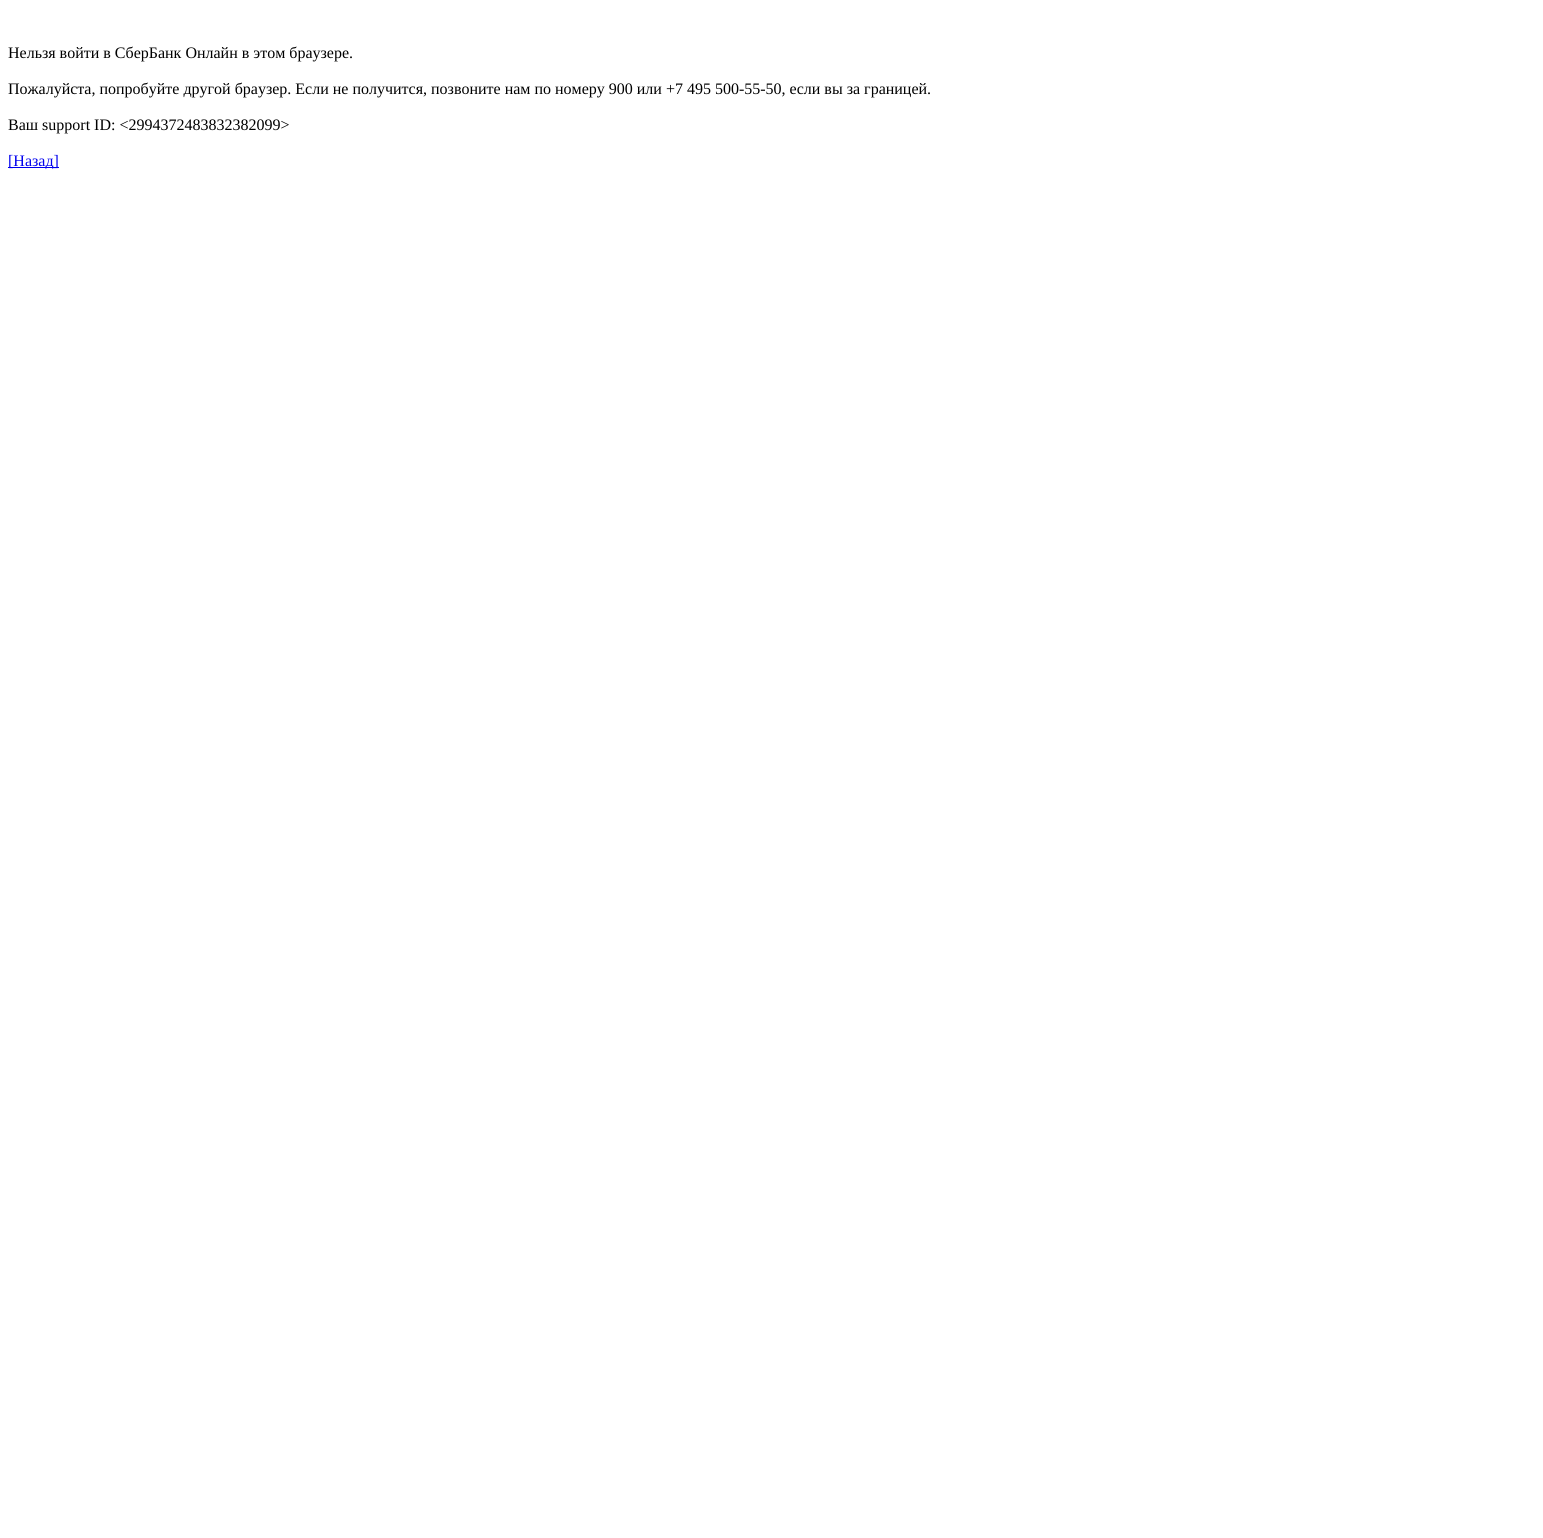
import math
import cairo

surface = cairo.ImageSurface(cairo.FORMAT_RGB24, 1543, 1538)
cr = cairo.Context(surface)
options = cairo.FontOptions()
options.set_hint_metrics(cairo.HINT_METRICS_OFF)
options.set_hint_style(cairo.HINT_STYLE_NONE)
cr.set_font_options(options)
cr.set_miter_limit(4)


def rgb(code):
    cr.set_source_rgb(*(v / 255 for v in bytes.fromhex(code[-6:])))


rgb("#ffffff")
cr.paint()
rgb("#0000ee")
cr.rectangle(8, 167, 51, 1)
cr.fill()
cr.select_font_face("Liberation Serif")
cr.set_font_size(16)
rgb("#000000")
for x, y, s in [
    (8, 58, "Нельзя войти в СберБанк Онлайн в этом браузере."),
    (8, 94, "Пожалуйста, попробуйте другой браузер. Если не получится, позвоните нам по номеру 900 или +7 495 500-55-50, если вы за границей."),
    (8, 130, "Ваш support ID: <2994372483832382099>"),
]:
    cr.move_to(x, y)
    cr.show_text(s)
rgb("#0000ee")
cr.move_to(8, 166)
cr.show_text("[Назад]")
surface.write_to_png("page.png")
